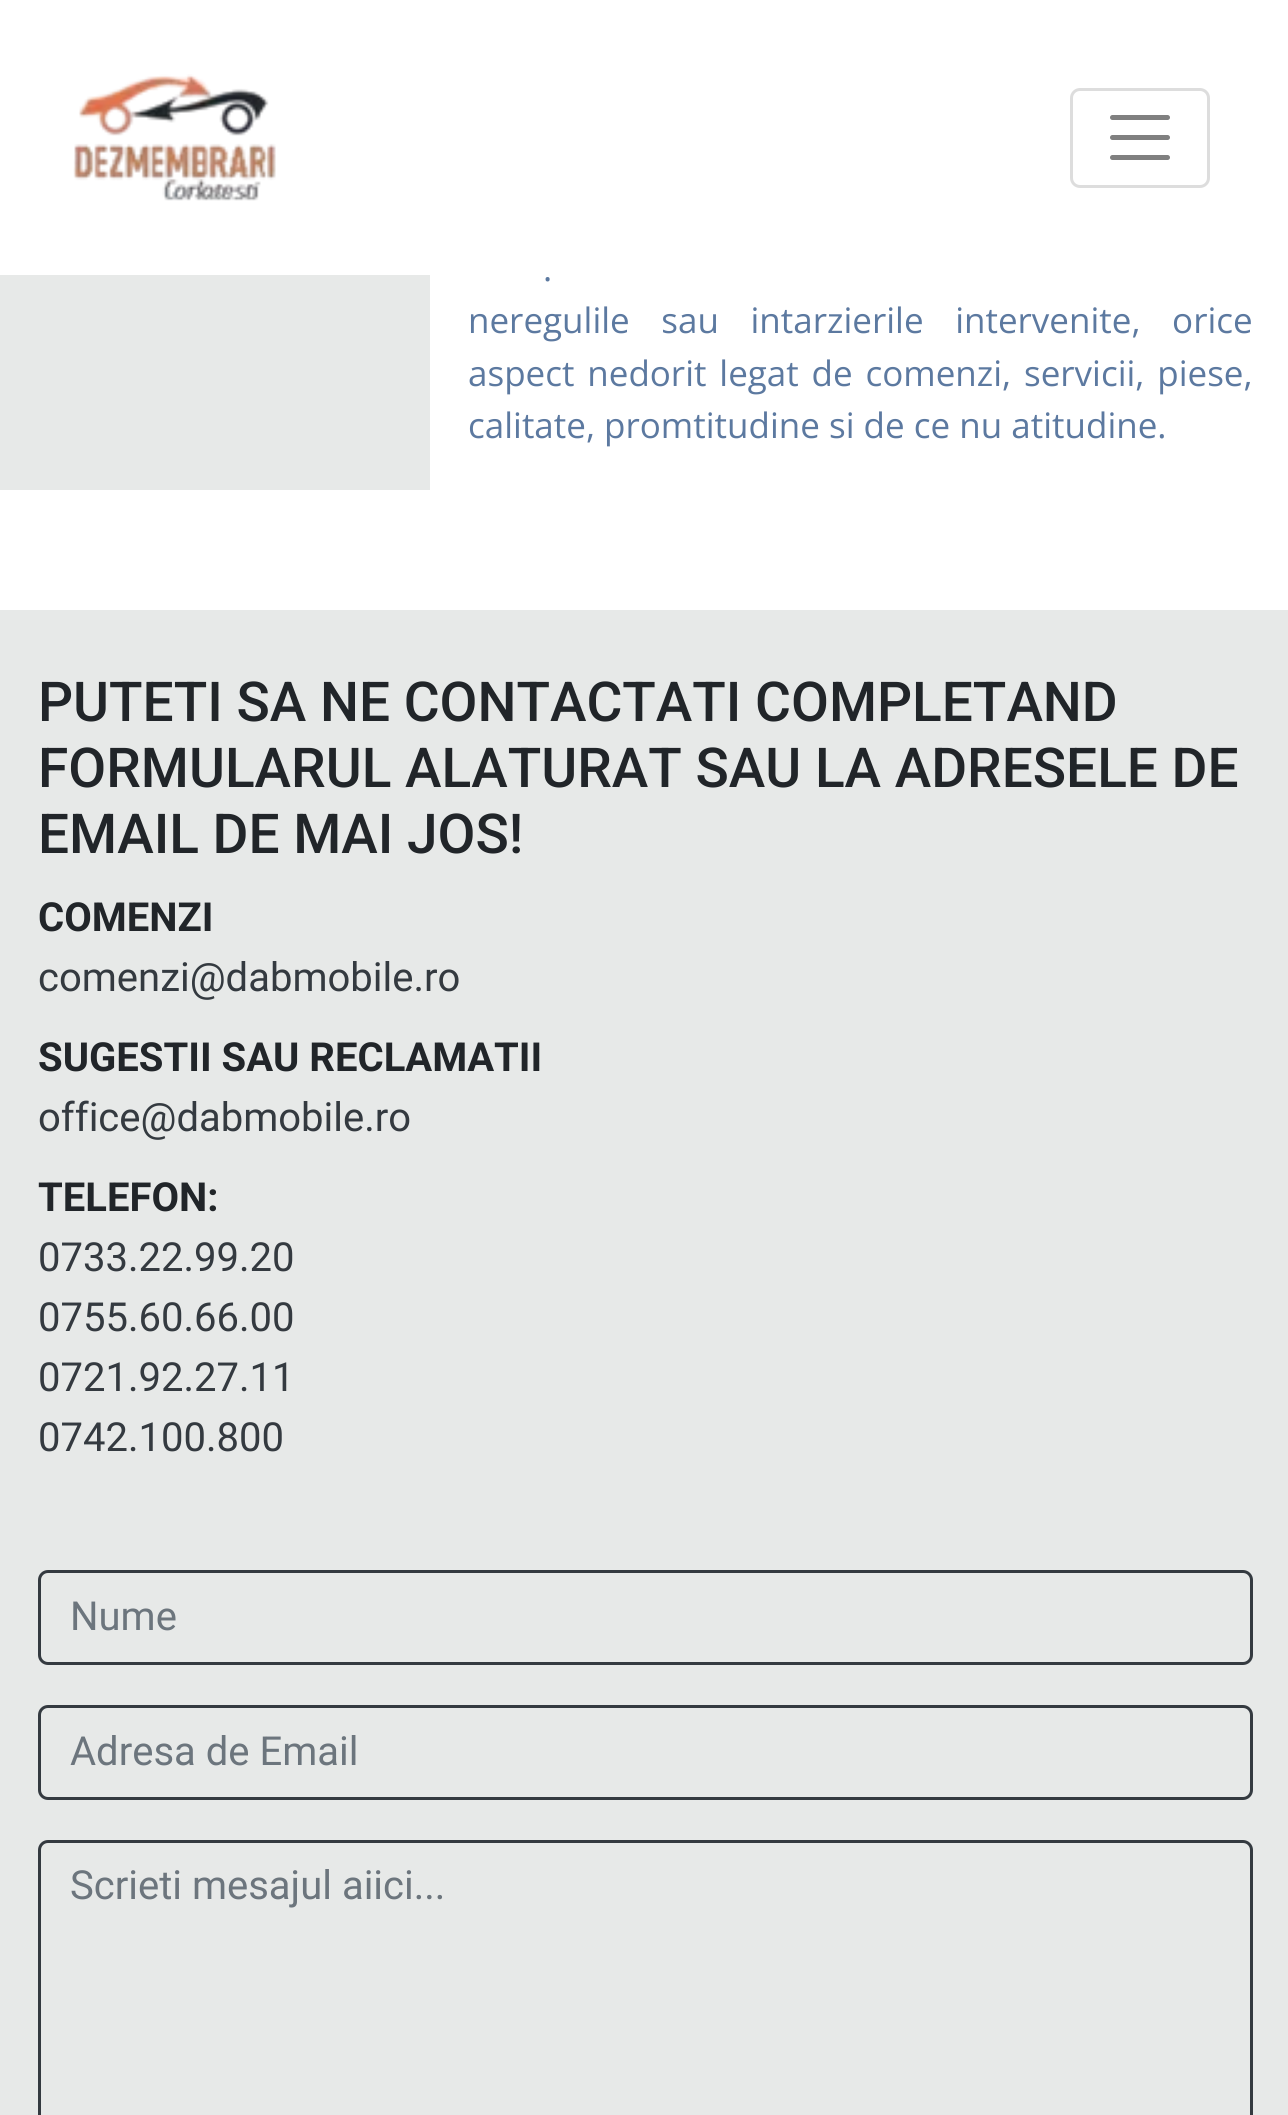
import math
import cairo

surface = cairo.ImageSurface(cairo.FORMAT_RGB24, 1288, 2115)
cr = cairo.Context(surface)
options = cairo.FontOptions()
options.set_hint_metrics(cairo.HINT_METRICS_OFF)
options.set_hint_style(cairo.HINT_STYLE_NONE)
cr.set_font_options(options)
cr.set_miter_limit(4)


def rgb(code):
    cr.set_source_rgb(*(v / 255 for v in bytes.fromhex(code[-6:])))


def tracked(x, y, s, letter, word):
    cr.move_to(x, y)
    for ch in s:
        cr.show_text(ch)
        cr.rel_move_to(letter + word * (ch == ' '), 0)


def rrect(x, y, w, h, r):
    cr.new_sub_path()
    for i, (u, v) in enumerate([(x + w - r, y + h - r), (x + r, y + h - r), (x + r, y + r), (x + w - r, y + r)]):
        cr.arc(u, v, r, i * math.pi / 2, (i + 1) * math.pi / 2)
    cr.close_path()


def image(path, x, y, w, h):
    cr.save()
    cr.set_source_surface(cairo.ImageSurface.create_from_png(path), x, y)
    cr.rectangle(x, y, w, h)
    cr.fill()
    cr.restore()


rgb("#ffffff")
cr.paint()
image("img/1.png", 73, 74, 203, 127)
rrect(1071.5, 89.5, 137, 97, 8.5)
rgb("#dddddd")
cr.set_line_width(3)
cr.stroke()
cr.new_path()
cr.move_to(1112.5, 117.5)
cr.line_to(1167.5, 117.5)
cr.move_to(1112.5, 137.5)
cr.line_to(1167.5, 137.5)
cr.move_to(1112.5, 157.5)
cr.line_to(1167.5, 157.5)
rgb("#808080")
cr.set_line_width(5)
cr.set_line_cap(cairo.LINE_CAP_ROUND)
cr.stroke()
rgb("#e7e9e8")
cr.rectangle(0, 275, 430, 215)
cr.fill()
cr.rectangle(0, 610, 1288, 1505)
cr.fill()
rrect(39.5, 1571.5, 1212, 92, 8.5)
rgb("#343a40")
cr.set_line_width(3)
cr.set_line_cap(cairo.LINE_CAP_BUTT)
cr.stroke()
rrect(39.5, 1706.5, 1212, 92, 8.5)
cr.stroke()
rrect(39.5, 1841.5, 1212, 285, 8.5)
cr.stroke()
cr.select_font_face("Open Sans")
cr.set_font_size(35)
rgb("#5c79a0")
tracked(543, 281, ".", 0, 13)
tracked(468, 333, "neregulile sau intarzierile intervenite, orice", 0, 22.5)
tracked(468, 386, "aspect nedorit legat de comenzi, servicii, piese,", 0, 3.75)
cr.move_to(468, 438)
cr.show_text("calitate, promtitudine si de ce nu atitudine.")
cr.select_font_face("Roboto Medium")
cr.set_font_size(55)
rgb("#212529")
for x, y, s in [
    (38, 721, "PUTETI SA NE CONTACTATI COMPLETAND"),
    (38, 787, "FORMULARUL ALATURAT SAU LA ADRESELE DE"),
    (38, 853, "EMAIL DE MAI JOS!"),
]:
    cr.move_to(x, y)
    cr.show_text(s)
cr.select_font_face("Roboto", cairo.FONT_SLANT_NORMAL, cairo.FONT_WEIGHT_BOLD)
cr.set_font_size(40)
cr.move_to(38, 931)
cr.show_text("COMENZI")
cr.select_font_face("Roboto")
rgb("#343a40")
cr.move_to(38, 991)
cr.show_text("comenzi@dabmobile.ro")
cr.select_font_face("Roboto", cairo.FONT_SLANT_NORMAL, cairo.FONT_WEIGHT_BOLD)
rgb("#212529")
cr.move_to(38, 1071)
cr.show_text("SUGESTII SAU RECLAMATII")
cr.select_font_face("Roboto")
rgb("#343a40")
cr.move_to(38, 1131)
cr.show_text("office@dabmobile.ro")
cr.select_font_face("Roboto", cairo.FONT_SLANT_NORMAL, cairo.FONT_WEIGHT_BOLD)
rgb("#212529")
cr.move_to(38, 1211)
cr.show_text("TELEFON:")
cr.select_font_face("Roboto")
rgb("#343a40")
for x, y, s in [
    (38, 1271, "0733.22.99.20"),
    (38, 1331, "0755.60.66.00"),
    (38, 1391, "0721.92.27.11"),
    (38, 1451, "0742.100.800"),
]:
    cr.move_to(x, y)
    cr.show_text(s)
rgb("#6c757d")
for x, y, s in [
    (70, 1630, "Nume"),
    (70, 1765, "Adresa de Email"),
    (70, 1899, "Scrieti mesajul aiici..."),
]:
    cr.move_to(x, y)
    cr.show_text(s)
surface.write_to_png("page.png")
